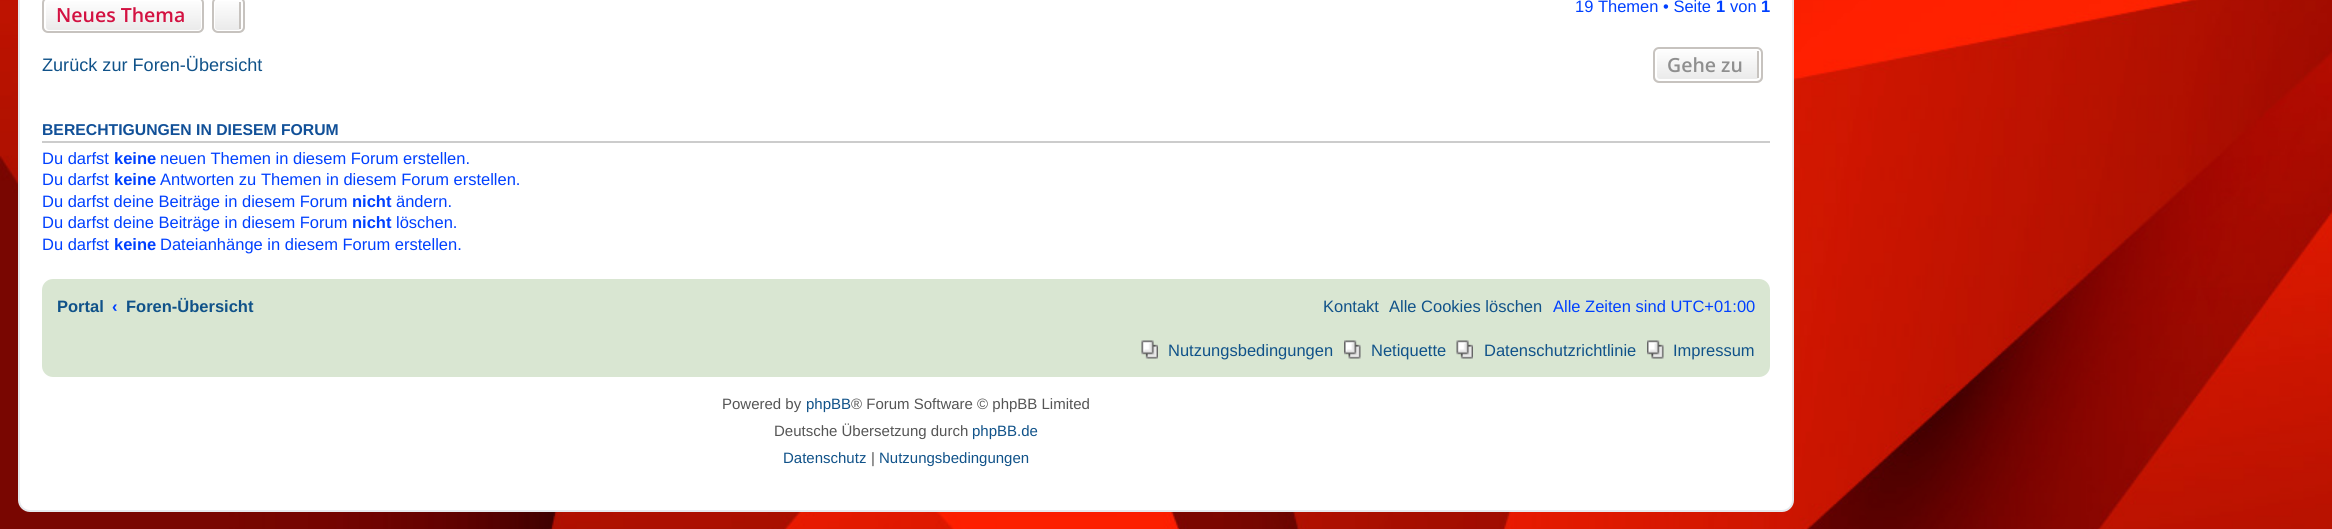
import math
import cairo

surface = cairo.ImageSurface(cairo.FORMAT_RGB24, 2332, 529)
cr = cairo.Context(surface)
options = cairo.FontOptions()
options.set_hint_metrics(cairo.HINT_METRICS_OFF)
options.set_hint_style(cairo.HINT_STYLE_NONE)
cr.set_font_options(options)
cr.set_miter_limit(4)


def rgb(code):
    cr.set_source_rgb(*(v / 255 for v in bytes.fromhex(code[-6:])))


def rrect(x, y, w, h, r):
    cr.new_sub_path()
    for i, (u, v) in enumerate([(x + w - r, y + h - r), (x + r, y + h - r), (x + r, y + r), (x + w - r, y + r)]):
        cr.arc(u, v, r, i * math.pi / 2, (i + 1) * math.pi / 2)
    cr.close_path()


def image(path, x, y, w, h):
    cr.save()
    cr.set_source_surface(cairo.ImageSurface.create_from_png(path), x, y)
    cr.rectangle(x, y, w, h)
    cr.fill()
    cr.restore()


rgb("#ffffff")
cr.paint()
image("img/1.png", 0, 0, 2332, 529)
rgb("#ffffff")
rrect(19, -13, 1774, 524, 11)
cr.fill_preserve()
rgb("#e6e9ed")
cr.stroke()
cr.save()
rrect(42, -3, 162, 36, 6)
cr.clip()
gradient = cairo.LinearGradient(123, -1.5, 123, 32)
gradient.add_color_stop_rgba(0, 1, 1, 1, 1)
gradient.add_color_stop_rgba(1, 0.914, 0.914, 0.914, 1)
cr.set_source(gradient)
cr.rectangle(42, 0, 162, 32)
cr.fill()
cr.restore()
rrect(45, 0, 157, 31, 4)
rgb("#ffffff")
cr.stroke()
rrect(43, -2, 160, 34, 5)
rgb("#c7c3bf")
cr.stroke()
cr.save()
rrect(212, -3, 33, 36, 6)
cr.clip()
gradient = cairo.LinearGradient(228, -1.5, 228, 32)
gradient.add_color_stop_rgba(0, 1, 1, 1, 1)
gradient.add_color_stop_rgba(1, 0.914, 0.914, 0.914, 1)
cr.set_source(gradient)
cr.rectangle(212, 0, 33, 32)
cr.fill()
cr.restore()
rrect(214, 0, 28, 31, 4)
rgb("#ffffff")
cr.stroke()
rrect(213, -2, 31, 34, 5)
rgb("#c7c3bf")
cr.stroke()
cr.rectangle(239, 2, 2, 27)
cr.fill()
cr.save()
rrect(1653, 47, 110, 36, 6)
cr.clip()
gradient = cairo.LinearGradient(1708, 48, 1708, 81)
gradient.add_color_stop_rgba(0, 1, 1, 1, 1)
gradient.add_color_stop_rgba(1, 0.914, 0.914, 0.914, 1)
cr.set_source(gradient)
cr.rectangle(1653, 48, 110, 33)
cr.fill()
cr.restore()
rrect(1656, 49, 104, 31, 4)
rgb("#ffffff")
cr.stroke()
rrect(1654, 48, 108, 34, 5)
rgb("#c7c3bf")
cr.stroke()
cr.rectangle(1757, 51, 2, 27)
cr.fill()
rgb("#cccccc")
cr.rectangle(42, 141, 1728, 2)
cr.fill()
rgb("#d9e6d2")
rrect(42, 279, 1728, 98, 11)
cr.fill()
image("img/2.png", 1141, 340, 17, 19)
image("img/3.png", 1344, 340, 17, 19)
image("img/2.png", 1456, 340, 17, 19)
image("img/4.png", 1647, 340, 17, 19)
cr.select_font_face("Open Sans SemiBold")
cr.set_font_size(19.5)
rgb("#d31141")
cr.move_to(56, 22)
cr.show_text("Neues Thema")
cr.select_font_face("Liberation Sans")
cr.set_font_size(16.5)
rgb("#0040ff")
cr.move_to(1575, 12)
cr.show_text("19 Themen • Seite")
cr.select_font_face("Liberation Sans", cairo.FONT_SLANT_NORMAL, cairo.FONT_WEIGHT_BOLD)
cr.move_to(1716, 12)
cr.show_text("1")
cr.select_font_face("Liberation Sans")
cr.move_to(1730, 12)
cr.show_text("von")
cr.select_font_face("Liberation Sans", cairo.FONT_SLANT_NORMAL, cairo.FONT_WEIGHT_BOLD)
cr.move_to(1761, 12)
cr.show_text("1")
cr.select_font_face("Liberation Sans")
cr.set_font_size(18.1)
rgb("#105289")
cr.move_to(42, 71)
cr.show_text("Zurück zur Foren-Übersicht")
cr.select_font_face("Open Sans SemiBold")
cr.set_font_size(19.5)
rgb("#8f8f8f")
cr.move_to(1667, 72)
cr.show_text("Gehe zu")
cr.select_font_face("Liberation Sans", cairo.FONT_SLANT_NORMAL, cairo.FONT_WEIGHT_BOLD)
cr.set_font_size(15.75)
rgb("#115098")
cr.move_to(42, 135)
cr.show_text("BERECHTIGUNGEN IN DIESEM FORUM")
cr.select_font_face("Liberation Sans")
cr.set_font_size(16.5)
rgb("#0040ff")
cr.move_to(42, 164)
cr.show_text("Du darfst")
cr.select_font_face("Liberation Sans", cairo.FONT_SLANT_NORMAL, cairo.FONT_WEIGHT_BOLD)
cr.move_to(114, 164)
cr.show_text("keine")
cr.select_font_face("Liberation Sans")
cr.move_to(160, 164)
cr.show_text("neuen Themen in diesem Forum erstellen.")
cr.move_to(42, 185)
cr.show_text("Du darfst")
cr.select_font_face("Liberation Sans", cairo.FONT_SLANT_NORMAL, cairo.FONT_WEIGHT_BOLD)
cr.move_to(114, 185)
cr.show_text("keine")
cr.select_font_face("Liberation Sans")
cr.move_to(160, 185)
cr.show_text("Antworten zu Themen in diesem Forum erstellen.")
cr.move_to(42, 207)
cr.show_text("Du darfst deine Beiträge in diesem Forum")
cr.select_font_face("Liberation Sans", cairo.FONT_SLANT_NORMAL, cairo.FONT_WEIGHT_BOLD)
cr.move_to(352, 207)
cr.show_text("nicht")
cr.select_font_face("Liberation Sans")
cr.move_to(396, 207)
cr.show_text("ändern.")
cr.move_to(42, 228)
cr.show_text("Du darfst deine Beiträge in diesem Forum")
cr.select_font_face("Liberation Sans", cairo.FONT_SLANT_NORMAL, cairo.FONT_WEIGHT_BOLD)
cr.move_to(352, 228)
cr.show_text("nicht")
cr.select_font_face("Liberation Sans")
cr.move_to(396, 228)
cr.show_text("löschen.")
cr.move_to(42, 250)
cr.show_text("Du darfst")
cr.select_font_face("Liberation Sans", cairo.FONT_SLANT_NORMAL, cairo.FONT_WEIGHT_BOLD)
cr.move_to(114, 250)
cr.show_text("keine")
cr.select_font_face("Liberation Sans")
cr.move_to(160, 250)
cr.show_text("Dateianhänge in diesem Forum erstellen.")
cr.select_font_face("Liberation Sans", cairo.FONT_SLANT_NORMAL, cairo.FONT_WEIGHT_BOLD)
rgb("#105289")
cr.move_to(57, 312)
cr.show_text("Portal")
rgb("#0040ff")
cr.move_to(112, 312)
cr.show_text("‹")
rgb("#105289")
cr.move_to(126, 312)
cr.show_text("Foren-Übersicht")
cr.select_font_face("Liberation Sans")
cr.move_to(1323, 312)
cr.show_text("Kontakt")
cr.move_to(1389, 312)
cr.show_text("Alle Cookies löschen")
rgb("#0040ff")
cr.move_to(1553, 312)
cr.show_text("Alle Zeiten sind UTC+01:00")
rgb("#105289")
for x, y, s in [
    (1168, 356, "Nutzungsbedingungen"),
    (1371, 356, "Netiquette"),
    (1484, 356, "Datenschutzrichtlinie"),
    (1673, 356, "Impressum"),
]:
    cr.move_to(x, y)
    cr.show_text(s)
cr.set_font_size(15)
rgb("#555555")
cr.move_to(722, 409)
cr.show_text("Powered by")
rgb("#105289")
cr.move_to(806, 409)
cr.show_text("phpBB")
rgb("#555555")
cr.move_to(851, 409)
cr.show_text("® Forum Software © phpBB Limited")
cr.move_to(774, 436)
cr.show_text("Deutsche Übersetzung durch")
rgb("#105289")
cr.move_to(972, 436)
cr.show_text("phpBB.de")
cr.move_to(783, 463)
cr.show_text("Datenschutz")
rgb("#555555")
cr.move_to(871, 463)
cr.show_text("|")
rgb("#105289")
cr.move_to(879, 463)
cr.show_text("Nutzungsbedingungen")
surface.write_to_png("page.png")
